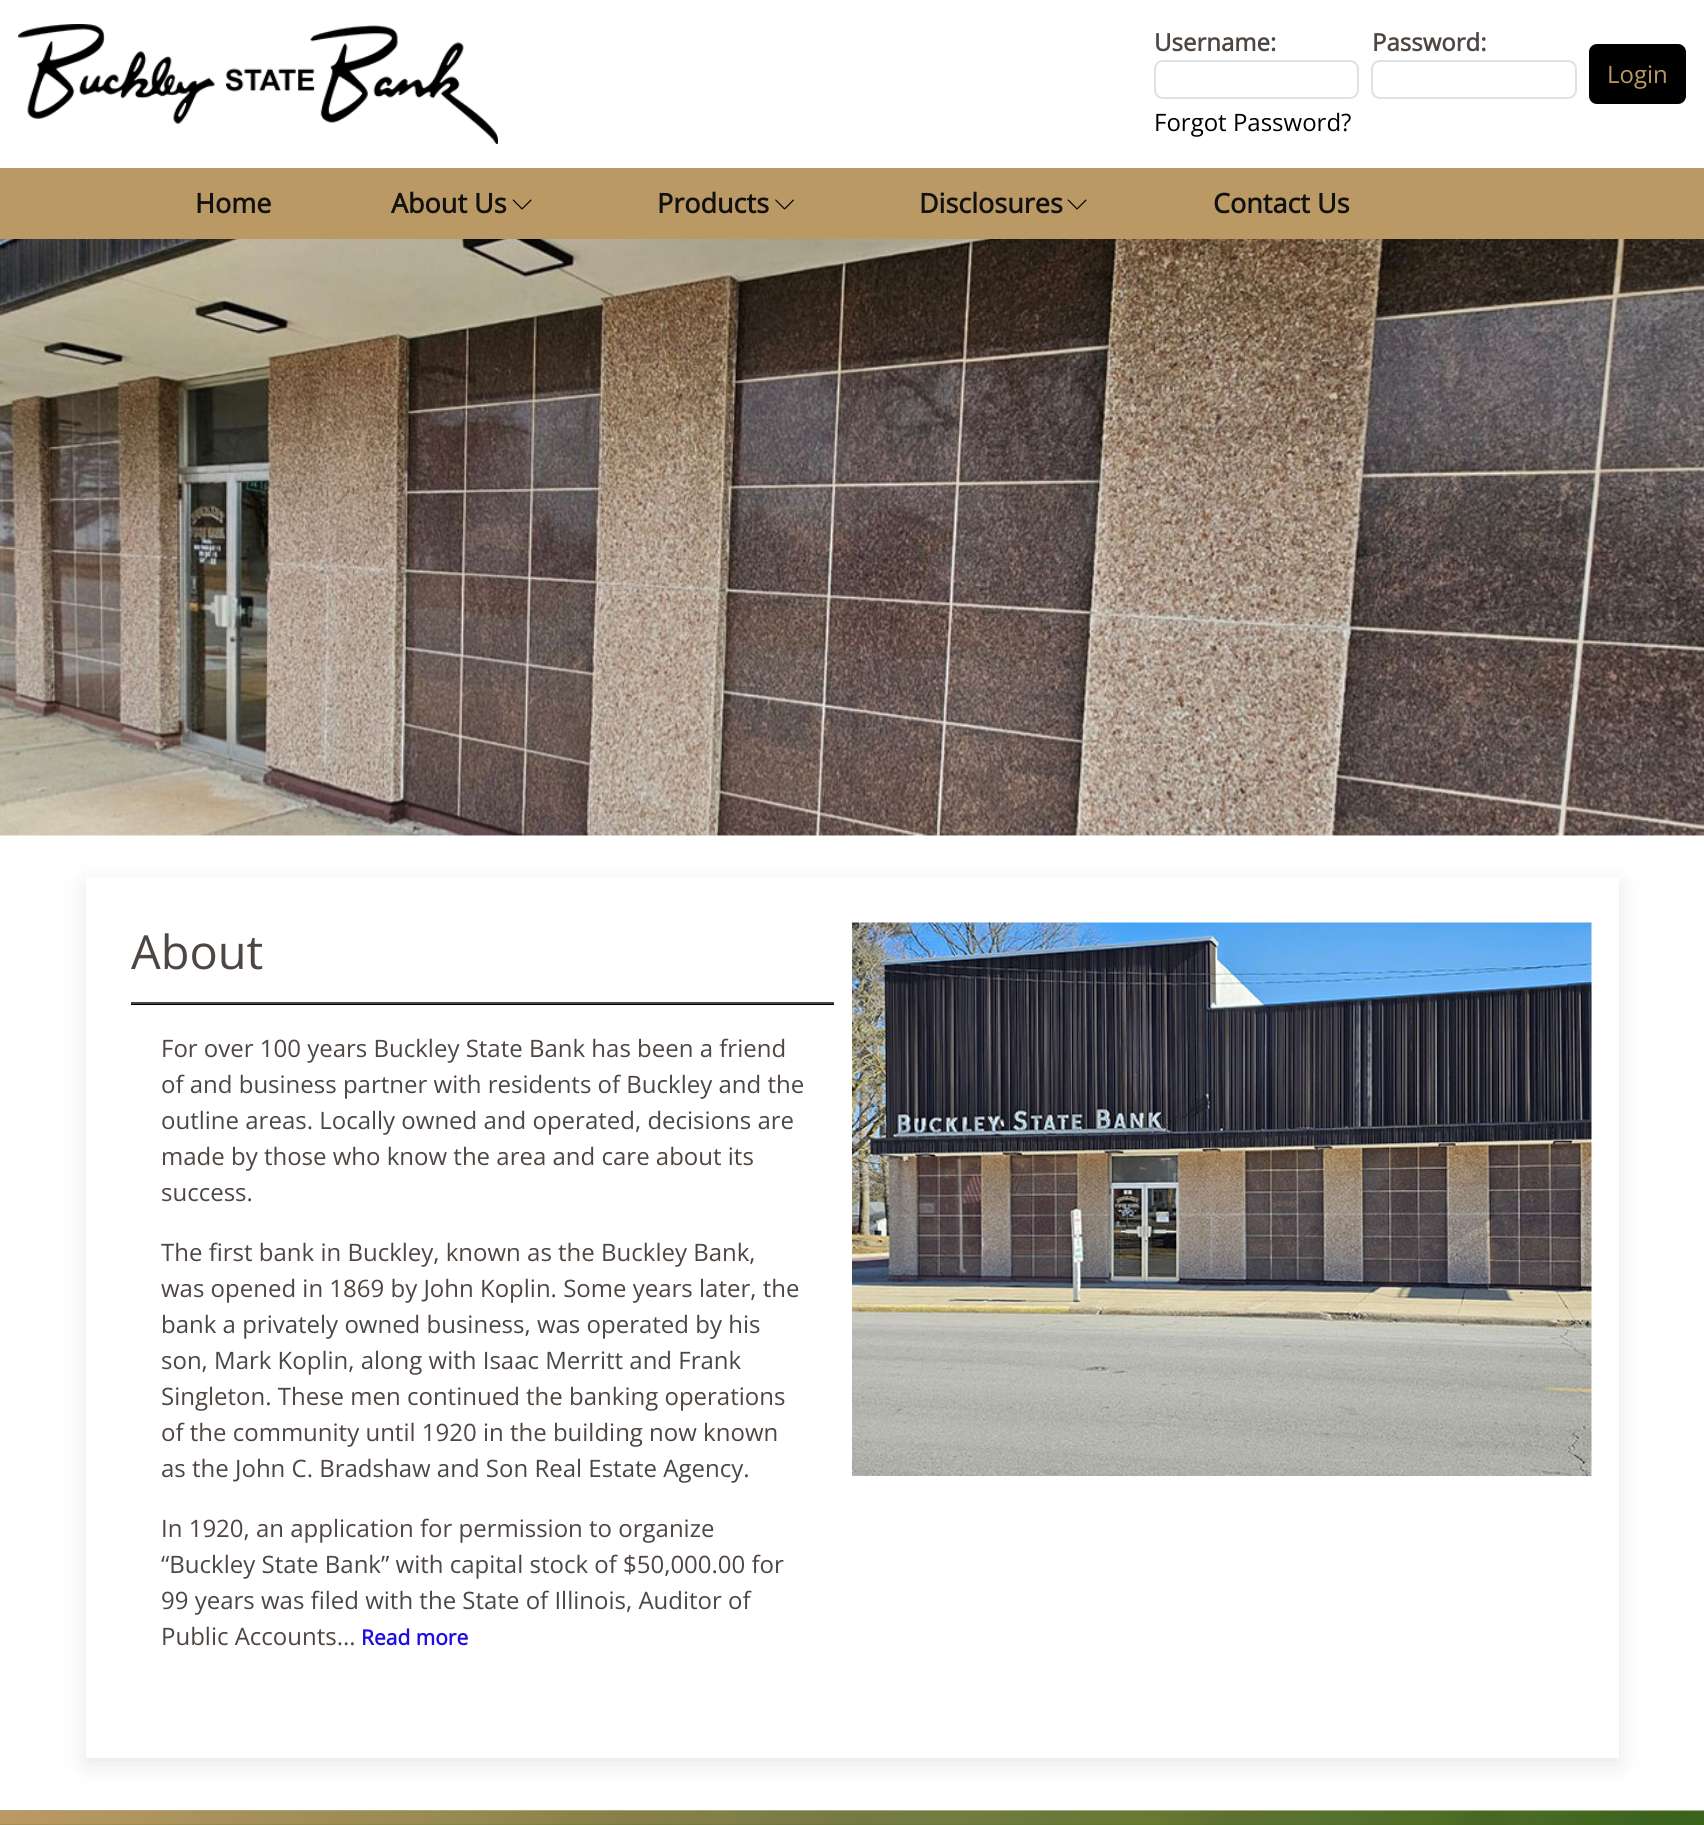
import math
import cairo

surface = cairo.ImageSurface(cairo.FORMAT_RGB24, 1704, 1825)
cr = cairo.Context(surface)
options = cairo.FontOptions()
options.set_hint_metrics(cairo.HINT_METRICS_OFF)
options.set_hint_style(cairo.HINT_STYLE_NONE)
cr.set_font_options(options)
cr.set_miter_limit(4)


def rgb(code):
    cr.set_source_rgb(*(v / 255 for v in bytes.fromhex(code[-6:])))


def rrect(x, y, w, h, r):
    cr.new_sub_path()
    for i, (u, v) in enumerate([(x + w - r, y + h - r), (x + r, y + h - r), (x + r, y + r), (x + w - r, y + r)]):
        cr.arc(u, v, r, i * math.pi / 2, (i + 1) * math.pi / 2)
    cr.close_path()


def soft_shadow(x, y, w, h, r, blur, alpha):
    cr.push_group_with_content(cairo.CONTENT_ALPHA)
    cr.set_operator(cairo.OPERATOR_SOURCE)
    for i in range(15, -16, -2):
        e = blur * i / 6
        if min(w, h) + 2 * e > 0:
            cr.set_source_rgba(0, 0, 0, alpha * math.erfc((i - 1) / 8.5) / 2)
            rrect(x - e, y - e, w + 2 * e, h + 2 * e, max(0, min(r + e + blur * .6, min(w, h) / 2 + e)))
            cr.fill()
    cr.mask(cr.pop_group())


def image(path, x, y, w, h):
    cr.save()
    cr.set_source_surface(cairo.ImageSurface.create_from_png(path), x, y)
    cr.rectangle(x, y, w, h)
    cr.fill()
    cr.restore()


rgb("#ffffff")
cr.paint()
rgb("#bb9964")
cr.rectangle(0, 168, 1704, 71)
cr.fill()
image("img/1.png", 18, 24, 480, 120)
rrect(1155, 61, 203, 37, 8)
rgb("#dee2e6")
cr.stroke()
rrect(1372, 61, 204, 37, 8)
cr.stroke()
rgb("#000000")
rrect(1590.5, 45.5, 94, 57, 6.5)
cr.fill_preserve()
cr.set_line_width(3)
cr.stroke()
image("img/2.png", 512, 199, 20, 11)
image("img/3.png", 775, 199, 19, 11)
image("img/2.png", 1067, 199, 20, 11)
image("img/4.png", 0, 239, 1704, 597)
cr.save()
cr.set_fill_rule(cairo.FILL_RULE_EVEN_ODD)
cr.new_path()
cr.move_to(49, 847)
cr.line_to(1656, 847)
cr.line_to(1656, 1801)
cr.line_to(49, 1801)
cr.close_path()
cr.move_to(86, 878)
cr.line_to(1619, 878)
cr.line_to(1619, 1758)
cr.line_to(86, 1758)
cr.close_path()
cr.clip()
rgb("#000000")
soft_shadow(86, 884, 1533, 880, 0, 12, 0.1)
cr.restore()
cr.rectangle(131, 1004, 703, 1)
cr.fill()
rgb("#4d4643")
cr.rectangle(131, 1002, 703, 2)
cr.fill()
image("img/5.png", 852, 922, 740, 554)
image("img/6.png", 0, 1810, 1704, 15)
cr.select_font_face("Open Sans", cairo.FONT_SLANT_NORMAL, cairo.FONT_WEIGHT_BOLD)
cr.set_font_size(24)
cr.move_to(1154, 51)
cr.show_text("Username:")
cr.move_to(1372, 51)
cr.show_text("Password:")
cr.select_font_face("Open Sans")
rgb("#bb9964")
cr.move_to(1607, 83)
cr.show_text("Login")
rgb("#000000")
cr.move_to(1154, 131)
cr.show_text("Forgot Password?")
cr.select_font_face("Open Sans", cairo.FONT_SLANT_NORMAL, cairo.FONT_WEIGHT_BOLD)
cr.set_font_size(27)
rgb("#111111")
for x, y, s in [
    (195, 213, "Home"),
    (391, 213, "About Us"),
    (657, 213, "Products"),
    (919, 213, "Disclosures"),
    (1213, 213, "Contact Us"),
]:
    cr.move_to(x, y)
    cr.show_text(s)
cr.select_font_face("Open Sans")
cr.set_font_size(47)
rgb("#4d4643")
cr.move_to(131, 969)
cr.show_text("About")
cr.set_font_size(24)
for x, y, s in [
    (161, 1057, "For over 100 years Buckley State Bank has been a friend"),
    (161, 1093, "of and business partner with residents of Buckley and the"),
    (161, 1129, "outline areas. Locally owned and operated, decisions are"),
    (161, 1165, "made by those who know the area and care about its"),
    (161, 1201, "success."),
    (161, 1261, "The first bank in Buckley, known as the Buckley Bank,"),
    (161, 1297, "was opened in 1869 by John Koplin. Some years later, the"),
    (161, 1333, "bank a privately owned business, was operated by his"),
    (161, 1369, "son, Mark Koplin, along with Isaac Merritt and Frank"),
    (161, 1405, "Singleton. These men continued the banking operations"),
    (161, 1441, "of the community until 1920 in the building now known"),
    (161, 1477, "as the John C. Bradshaw and Son Real Estate Agency."),
    (161, 1537, "In 1920, an application for permission to organize"),
    (161, 1573, "“Buckley State Bank” with capital stock of $50,000.00 for"),
    (161, 1609, "99 years was filed with the State of Illinois, Auditor of"),
    (161, 1645, "Public Accounts..."),
]:
    cr.move_to(x, y)
    cr.show_text(s)
cr.select_font_face("Open Sans", cairo.FONT_SLANT_NORMAL, cairo.FONT_WEIGHT_BOLD)
cr.set_font_size(21)
rgb("#1f0ce0")
cr.move_to(361, 1645)
cr.show_text("Read more")
surface.write_to_png("page.png")
